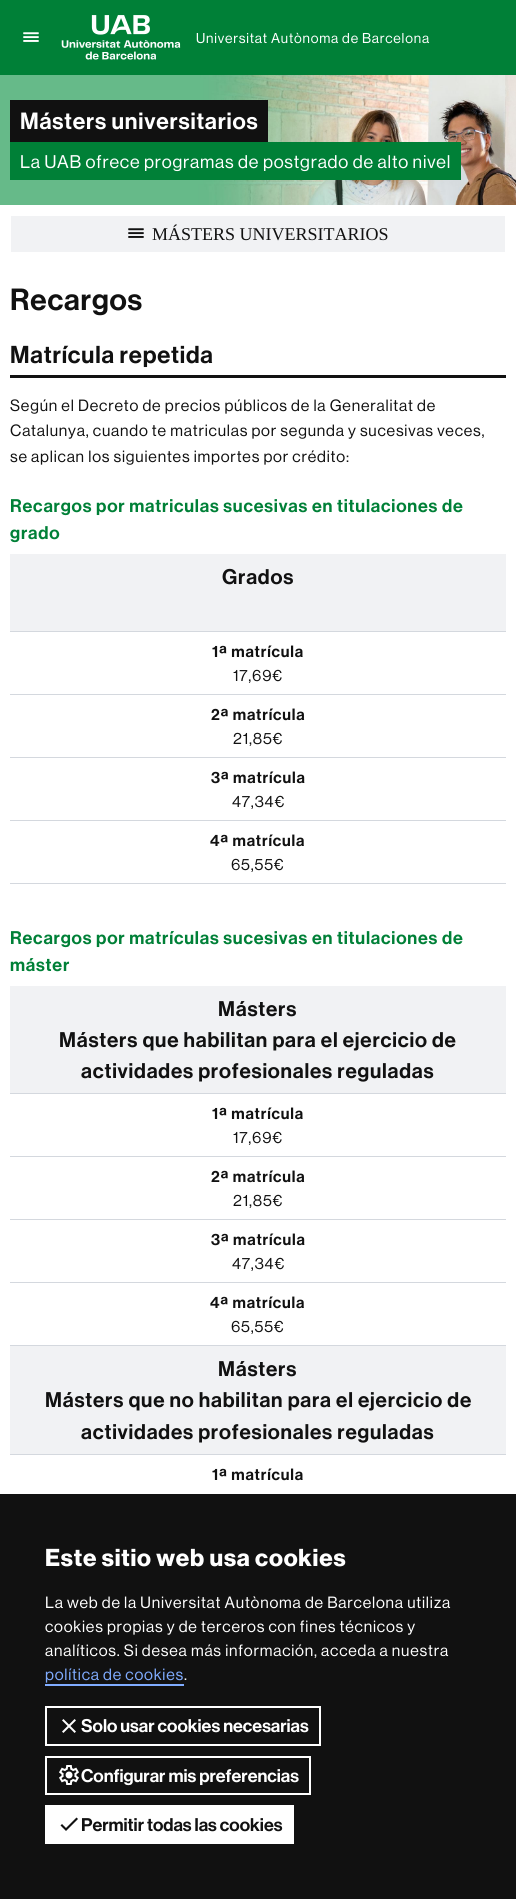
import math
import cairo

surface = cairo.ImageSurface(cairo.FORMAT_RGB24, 516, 1899)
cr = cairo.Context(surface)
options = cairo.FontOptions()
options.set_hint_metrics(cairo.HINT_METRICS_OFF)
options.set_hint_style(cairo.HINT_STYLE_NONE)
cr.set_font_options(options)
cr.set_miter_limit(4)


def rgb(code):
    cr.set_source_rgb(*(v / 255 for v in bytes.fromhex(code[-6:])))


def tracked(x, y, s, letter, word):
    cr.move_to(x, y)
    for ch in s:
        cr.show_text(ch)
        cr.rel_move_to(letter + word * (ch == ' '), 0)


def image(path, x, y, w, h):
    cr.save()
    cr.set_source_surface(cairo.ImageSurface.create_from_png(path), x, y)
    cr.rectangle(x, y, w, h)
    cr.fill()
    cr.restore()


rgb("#ffffff")
cr.paint()
rgb("#008037")
cr.rectangle(0, 0, 516, 75)
cr.fill()
image("img/1.png", 23, 32, 16, 10)
image("img/2.png", 61, 15, 120, 45)
image("img/3.png", 0, 75, 516, 130)
for x, y, w, h, color in [
    (10, 100, 258, 42, "#111111"),
    (10, 142, 451, 38, "#008037"),
    (11, 216, 494, 36, "#f1f2f4"),
]:
    rgb(color)
    cr.rectangle(x, y, w, h)
    cr.fill()
image("img/4.png", 128, 228, 16, 10)
for x, y, w, h, color in [
    (10, 375, 496, 3, "#111111"),
    (10, 554, 496, 77, "#f1f2f4"),
    (10, 631, 496, 1, "#d4d8de"),
    (10, 694, 496, 1, "#d4d8de"),
    (10, 757, 496, 1, "#d4d8de"),
    (10, 820, 496, 1, "#d4d8de"),
    (10, 883, 496, 1, "#d4d8de"),
    (10, 986, 496, 107, "#f1f2f4"),
    (10, 1093, 496, 1, "#d4d8de"),
    (10, 1156, 496, 1, "#d4d8de"),
    (10, 1219, 496, 1, "#d4d8de"),
    (10, 1282, 496, 1, "#d4d8de"),
    (10, 1345, 496, 1, "#d4d8de"),
    (10, 1346, 496, 108, "#f1f2f4"),
    (10, 1454, 496, 1, "#d4d8de"),
    (0, 1494, 516, 405, "#111111"),
    (45, 1684, 139, 2, "#80acff"),
]:
    rgb(color)
    cr.rectangle(x, y, w, h)
    cr.fill()
cr.rectangle(46, 1707, 274, 38)
rgb("#ffffff")
cr.stroke()
image("img/5.png", 62, 1719, 14, 14)
cr.rectangle(46, 1757, 264, 37)
cr.stroke()
image("img/6.png", 59, 1765, 20, 20)
cr.rectangle(45, 1805, 249, 39)
cr.fill()
rgb("#111111")
cr.new_path()
cr.move_to(66, 1828)
cr.line_to(62, 1824)
cr.line_to(60.5, 1825.5)
cr.line_to(66, 1831)
cr.line_to(78, 1819)
cr.line_to(76.5, 1817.5)
cr.close_path()
cr.fill()
cr.select_font_face("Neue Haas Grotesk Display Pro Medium")
cr.set_font_size(14)
rgb("#ffffff")
tracked(196, 43, "Universitat Autònoma de Barcelona", 0.8, 0)
cr.select_font_face("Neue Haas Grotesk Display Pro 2 Medium")
cr.set_font_size(23)
tracked(20, 129, "Másters universitarios", 0.8, 0)
cr.select_font_face("Neue Haas Grotesk Display Pro Medium")
cr.set_font_size(18)
tracked(20, 168, "La UAB ofrece programas de postgrado de alto nivel", 0.8, 0)
cr.select_font_face("Liberation Serif")
rgb("#111111")
cr.move_to(152, 240)
cr.show_text("MÁSTERS UNIVERSITARIOS")
cr.select_font_face("Neue Haas Grotesk Display Pro 2 Medium")
cr.set_font_size(30)
tracked(10, 310, "Recargos", 0.8, 0)
cr.set_font_size(24)
tracked(10, 363, "Matrícula repetida", 0.8, 0)
cr.select_font_face("Neue Haas Grotesk Display Pro Medium")
cr.set_font_size(16)
for x, y, s in [
    (10, 411, "Según el Decreto de precios públicos de la Generalitat de"),
    (10, 436, "Catalunya, cuando te matriculas por segunda y sucesivas veces,"),
    (10, 462, "se aplican los siguientes importes por crédito:"),
]:
    tracked(x, y, s, 0.8, 0)
cr.select_font_face("Neue Haas Grotesk Display Pro 2 Medium")
cr.set_font_size(18)
rgb("#008037")
tracked(10, 512, "Recargos por matriculas sucesivas en titulaciones de", 0.8, 0)
tracked(10, 539, "grado", 0.8, 0)
cr.set_font_size(20.8)
rgb("#111111")
tracked(222, 584, "Grados", 0.8, 0)
cr.set_font_size(16)
tracked(212, 657, "1ª matrícula", 0.8, 0)
cr.select_font_face("Neue Haas Grotesk Display Pro Medium")
tracked(233, 681, "17,69€", 0.8, 0)
cr.select_font_face("Neue Haas Grotesk Display Pro 2 Medium")
tracked(211, 720, "2ª matrícula", 0.8, 0)
cr.select_font_face("Neue Haas Grotesk Display Pro Medium")
tracked(233, 744, "21,85€", 0.8, 0)
cr.select_font_face("Neue Haas Grotesk Display Pro 2 Medium")
tracked(211, 783, "3ª matrícula", 0.8, 0)
cr.select_font_face("Neue Haas Grotesk Display Pro Medium")
tracked(232, 807, "47,34€", 0.8, 0)
cr.select_font_face("Neue Haas Grotesk Display Pro 2 Medium")
tracked(210, 846, "4ª matrícula", 0.8, 0)
cr.select_font_face("Neue Haas Grotesk Display Pro Medium")
tracked(231, 870, "65,55€", 0.8, 0)
cr.select_font_face("Neue Haas Grotesk Display Pro 2 Medium")
cr.set_font_size(18)
rgb("#008037")
tracked(10, 944, "Recargos por matrículas sucesivas en titulaciones de", 0.8, 0)
tracked(10, 971, "máster", 0.8, 0)
cr.set_font_size(20.8)
rgb("#111111")
for x, y, s in [
    (218, 1016, "Másters"),
    (59, 1047, "Másters que habilitan para el ejercicio de"),
    (81, 1078, "actividades profesionales reguladas"),
]:
    tracked(x, y, s, 0.8, 0)
cr.set_font_size(16)
tracked(212, 1119, "1ª matrícula", 0.8, 0)
cr.select_font_face("Neue Haas Grotesk Display Pro Medium")
tracked(233, 1143, "17,69€", 0.8, 0)
cr.select_font_face("Neue Haas Grotesk Display Pro 2 Medium")
tracked(211, 1182, "2ª matrícula", 0.8, 0)
cr.select_font_face("Neue Haas Grotesk Display Pro Medium")
tracked(233, 1206, "21,85€", 0.8, 0)
cr.select_font_face("Neue Haas Grotesk Display Pro 2 Medium")
tracked(211, 1245, "3ª matrícula", 0.8, 0)
cr.select_font_face("Neue Haas Grotesk Display Pro Medium")
tracked(232, 1269, "47,34€", 0.8, 0)
cr.select_font_face("Neue Haas Grotesk Display Pro 2 Medium")
tracked(210, 1308, "4ª matrícula", 0.8, 0)
cr.select_font_face("Neue Haas Grotesk Display Pro Medium")
tracked(231, 1332, "65,55€", 0.8, 0)
cr.select_font_face("Neue Haas Grotesk Display Pro 2 Medium")
cr.set_font_size(20.8)
for x, y, s in [
    (218, 1376, "Másters"),
    (45, 1407, "Másters que no habilitan para el ejercicio de"),
    (81, 1439, "actividades profesionales reguladas"),
]:
    tracked(x, y, s, 0.8, 0)
cr.set_font_size(16)
tracked(212, 1480, "1ª matrícula", 0.8, 0)
cr.select_font_face("Neue Haas Grotesk Display Pro", cairo.FONT_SLANT_NORMAL, cairo.FONT_WEIGHT_BOLD)
cr.set_font_size(24)
rgb("#ffffff")
tracked(45, 1566, "Este sitio web usa cookies", 0.8, 0)
cr.select_font_face("Neue Haas Grotesk Display Pro Medium")
cr.set_font_size(16)
for x, y, s in [
    (45, 1608, "La web de la Universitat Autònoma de Barcelona utiliza"),
    (45, 1632, "cookies propias y de terceros con fines técnicos y"),
    (45, 1656, "analíticos. Si desea más información, acceda a nuestra"),
]:
    tracked(x, y, s, 0.8, 0)
rgb("#80acff")
tracked(45, 1680, "política de cookies", 0.8, 0)
rgb("#ffffff")
tracked(184, 1680, ".", 0.8, 0)
cr.select_font_face("Neue Haas Grotesk Display Pro 2 Medium")
cr.set_font_size(18)
cr.move_to(81, 1732)
cr.show_text("Solo usar cookies necesarias")
cr.move_to(81, 1782)
cr.show_text("Configurar mis preferencias")
rgb("#111111")
cr.move_to(81, 1831)
cr.show_text("Permitir todas las cookies")
surface.write_to_png("page.png")
